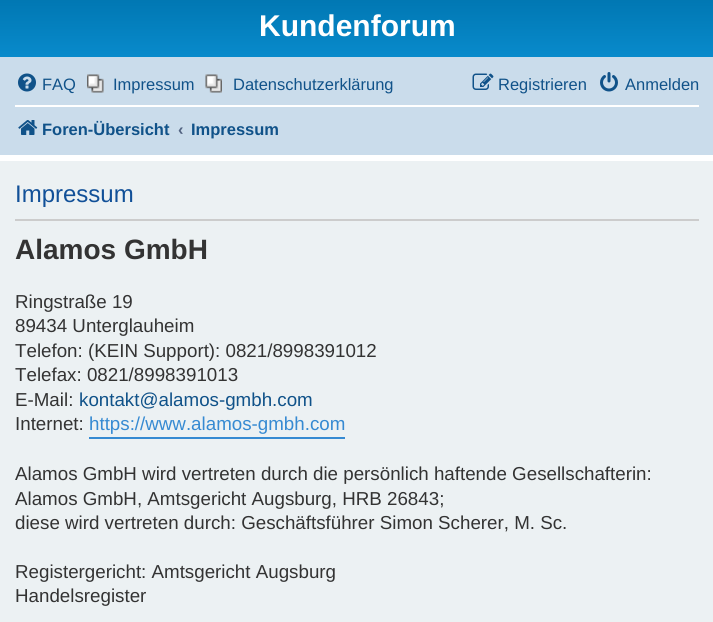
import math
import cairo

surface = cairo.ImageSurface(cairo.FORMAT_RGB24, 713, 622)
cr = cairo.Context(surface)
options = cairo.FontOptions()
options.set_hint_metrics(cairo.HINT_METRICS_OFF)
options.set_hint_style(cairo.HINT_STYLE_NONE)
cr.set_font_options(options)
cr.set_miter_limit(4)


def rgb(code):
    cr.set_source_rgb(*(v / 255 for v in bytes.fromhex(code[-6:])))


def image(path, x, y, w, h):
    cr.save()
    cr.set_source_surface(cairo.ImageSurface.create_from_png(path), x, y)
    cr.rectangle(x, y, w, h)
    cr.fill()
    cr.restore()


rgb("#ffffff")
cr.paint()
gradient = cairo.LinearGradient(357, -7.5, 357, 130)
gradient.add_color_stop_rgba(0, 0.416, 0.808, 1, 1)
gradient.add_color_stop_rgba(0.02, 0, 0.463, 0.694, 1)
gradient.add_color_stop_rgba(1, 0.071, 0.639, 0.922, 1)
cr.set_source(gradient)
cr.rectangle(0, 0, 713, 57)
cr.fill()
rgb("#cadceb")
cr.rectangle(0, 57, 713, 98)
cr.fill()
image("img/1.png", 18, 73, 18, 19)
image("img/2.png", 87, 74, 17, 19)
image("img/3.png", 205, 74, 17, 19)
image("img/4.png", 472, 73, 22, 17)
image("img/5.png", 600, 72, 18, 20)
rgb("#ffffff")
cr.rectangle(15, 105, 684, 2)
cr.fill()
image("img/6.png", 18, 120, 20, 15)
for x, y, w, h, color in [
    (0, 161, 713, 461, "#ecf1f3"),
    (15, 219, 684, 2, "#cccccc"),
    (89, 437, 256, 2, "#368ad2"),
]:
    rgb(color)
    cr.rectangle(x, y, w, h)
    cr.fill()
cr.select_font_face("Liberation Sans", cairo.FONT_SLANT_NORMAL, cairo.FONT_WEIGHT_BOLD)
cr.set_font_size(30)
rgb("#ffffff")
cr.move_to(259, 36)
cr.show_text("Kundenforum")
cr.select_font_face("Liberation Sans")
cr.set_font_size(16.5)
rgb("#105289")
for x, y, s in [
    (42, 90, "FAQ"),
    (113, 90, "Impressum"),
    (233, 90, "Datenschutzerklärung"),
    (498, 90, "Registrieren"),
    (625, 90, "Anmelden"),
]:
    cr.move_to(x, y)
    cr.show_text(s)
cr.select_font_face("Liberation Sans", cairo.FONT_SLANT_NORMAL, cairo.FONT_WEIGHT_BOLD)
cr.move_to(42, 135)
cr.show_text("Foren-Übersicht")
rgb("#536482")
cr.move_to(178, 135)
cr.show_text("‹")
rgb("#105289")
cr.move_to(191, 135)
cr.show_text("Impressum")
cr.select_font_face("Liberation Sans")
cr.set_font_size(24)
rgb("#115098")
cr.move_to(15, 202)
cr.show_text("Impressum")
cr.select_font_face("Liberation Sans", cairo.FONT_SLANT_NORMAL, cairo.FONT_WEIGHT_BOLD)
cr.set_font_size(28)
rgb("#333333")
cr.move_to(15, 259)
cr.show_text("Alamos GmbH")
cr.select_font_face("Liberation Sans")
cr.set_font_size(18.75)
for x, y, s in [
    (15, 308, "Ringstraße 19"),
    (15, 332, "89434 Unterglauheim"),
    (15, 357, "Telefon: (KEIN Support): 0821/8998391012"),
    (15, 381, "Telefax: 0821/8998391013"),
    (15, 406, "E-Mail:"),
]:
    cr.move_to(x, y)
    cr.show_text(s)
rgb("#105289")
cr.move_to(79, 406)
cr.show_text("kontakt@alamos-gmbh.com")
rgb("#333333")
cr.move_to(15, 430)
cr.show_text("Internet:")
rgb("#368ad2")
cr.move_to(89, 430)
cr.show_text("https://www.alamos-gmbh.com")
rgb("#333333")
for x, y, s in [
    (15, 480, "Alamos GmbH wird vertreten durch die persönlich haftende Gesellschafterin:"),
    (15, 505, "Alamos GmbH, Amtsgericht Augsburg, HRB 26843;"),
    (15, 529, "diese wird vertreten durch: Geschäftsführer Simon Scherer, M. Sc."),
    (15, 578, "Registergericht: Amtsgericht Augsburg"),
    (15, 602, "Handelsregister"),
]:
    cr.move_to(x, y)
    cr.show_text(s)
surface.write_to_png("page.png")
